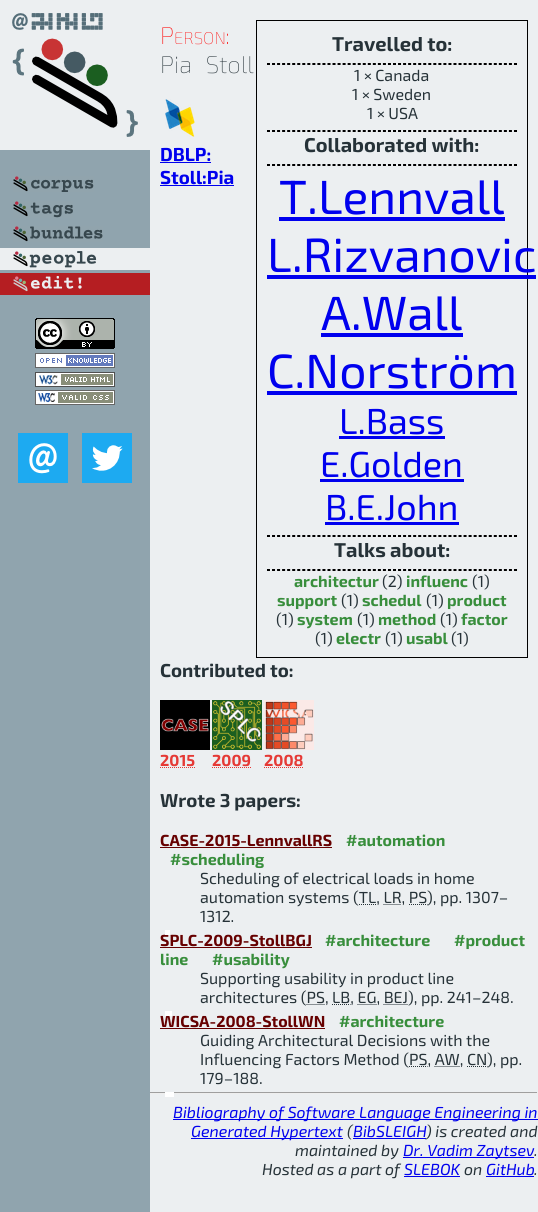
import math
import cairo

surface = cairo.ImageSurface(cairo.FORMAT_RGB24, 538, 1212)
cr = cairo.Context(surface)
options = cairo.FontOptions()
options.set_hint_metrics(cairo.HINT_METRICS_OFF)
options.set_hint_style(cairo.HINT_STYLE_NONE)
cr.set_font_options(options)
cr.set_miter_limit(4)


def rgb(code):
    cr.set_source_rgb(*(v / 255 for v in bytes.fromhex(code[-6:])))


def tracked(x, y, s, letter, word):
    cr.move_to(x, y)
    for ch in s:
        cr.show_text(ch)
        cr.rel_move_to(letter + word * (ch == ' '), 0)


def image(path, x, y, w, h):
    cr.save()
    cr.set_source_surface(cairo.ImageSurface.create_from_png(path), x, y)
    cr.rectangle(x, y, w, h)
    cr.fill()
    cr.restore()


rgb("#eceff1")
cr.paint()
rgb("#90a4ae")
cr.rectangle(0, 150, 150, 1062)
cr.fill()
image("img/1.png", 0, 0, 150, 150)
image("img/2.png", 13, 176, 81, 16)
image("img/3.png", 13, 201, 60, 17)
image("img/4.png", 13, 226, 90, 16)
image("img/5.png", 0, 248, 150, 22)
image("img/6.png", 0, 273, 150, 22)
image("img/7.png", 35, 318, 80, 31)
image("img/8.png", 35, 353, 80, 15)
image("img/9.png", 35, 372, 80, 15)
image("img/10.png", 35, 390, 80, 15)
image("img/11.png", 18, 433, 50, 50)
image("img/12.png", 82, 433, 50, 50)
cr.rectangle(256.5, 20.5, 271, 637)
rgb("#000000")
cr.set_line_width(1)
cr.stroke()
cr.new_path()
cr.move_to(267, 63.5)
cr.line_to(517, 63.5)
cr.set_dash([3, 2.04])
cr.stroke()
cr.rectangle(516, 63, 1, 2)
cr.fill()
cr.new_path()
cr.move_to(267, 64.5)
cr.line_to(517, 64.5)
cr.stroke()
cr.new_path()
cr.move_to(267, 130.5)
cr.line_to(517, 130.5)
cr.stroke()
cr.rectangle(516, 130, 1, 2)
cr.fill()
cr.new_path()
cr.move_to(267, 131.5)
cr.line_to(517, 131.5)
cr.stroke()
cr.new_path()
cr.move_to(267, 164.5)
cr.line_to(517, 164.5)
cr.stroke()
cr.rectangle(516, 164, 1, 2)
cr.fill()
cr.new_path()
cr.move_to(267, 165.5)
cr.line_to(517, 165.5)
cr.stroke()
for x, y, w, h, color in [
    (279, 217, 226, 4, "#0000ee"),
    (267, 275, 269, 4, "#0000ee"),
    (321, 333, 142, 4, "#0000ee"),
    (267, 391, 250, 4, "#0000ee"),
    (339, 436, 106, 3, "#0000ee"),
    (320, 479, 144, 3, "#0000ee"),
    (325, 522, 134, 3, "#0000ee"),
]:
    rgb(color)
    cr.rectangle(x, y, w, h)
    cr.fill()
cr.new_path()
cr.move_to(267, 535.5)
cr.line_to(517, 535.5)
rgb("#000000")
cr.stroke()
cr.rectangle(516, 535, 1, 2)
cr.fill()
cr.new_path()
cr.move_to(267, 536.5)
cr.line_to(517, 536.5)
cr.stroke()
cr.new_path()
cr.move_to(267, 569.5)
cr.line_to(517, 569.5)
cr.stroke()
cr.rectangle(516, 569, 1, 2)
cr.fill()
cr.new_path()
cr.move_to(267, 570.5)
cr.line_to(517, 570.5)
cr.stroke()
image("img/13.png", 165, 99, 30, 38)
rgb("#0000ee")
cr.rectangle(160, 162, 51, 1)
cr.fill()
cr.rectangle(160, 185, 74, 1)
cr.fill()
image("img/14.png", 160, 700, 50, 50)
cr.new_path()
cr.move_to(160, 767.5)
cr.line_to(195, 767.5)
rgb("#e53935")
cr.set_dash([1, 1])
cr.stroke()
image("img/15.png", 212, 700, 50, 50)
cr.new_path()
cr.move_to(212, 767.5)
cr.line_to(251, 767.5)
cr.stroke()
image("img/16.png", 264, 700, 50, 50)
cr.new_path()
cr.move_to(264, 767.5)
cr.line_to(303.5, 767.5)
cr.stroke()
rgb("#660000")
cr.rectangle(160, 847, 172, 1)
cr.fill()
cr.new_path()
cr.move_to(359, 904.5)
cr.line_to(376.5, 904.5)
cr.move_to(383.5, 904.5)
cr.line_to(401.5, 904.5)
rgb("#263238")
cr.stroke()
cr.new_path()
cr.move_to(409, 904.5)
cr.line_to(427.5, 904.5)
cr.stroke()
rgb("#660000")
cr.rectangle(160, 947, 152, 1)
cr.fill()
cr.new_path()
cr.move_to(306.5, 1004.5)
cr.line_to(325, 1004.5)
cr.move_to(332, 1004.5)
cr.line_to(350.5, 1004.5)
rgb("#263238")
cr.stroke()
cr.new_path()
cr.move_to(357.5, 1004.5)
cr.line_to(376.5, 1004.5)
cr.move_to(383.5, 1004.5)
cr.line_to(408, 1004.5)
cr.stroke()
rgb("#660000")
cr.rectangle(160, 1028, 165, 1)
cr.fill()
cr.new_path()
cr.move_to(409, 1066.5)
cr.line_to(427.5, 1066.5)
cr.move_to(434.5, 1066.5)
cr.line_to(460, 1066.5)
rgb("#263238")
cr.stroke()
cr.new_path()
cr.move_to(467, 1066.5)
cr.line_to(487.5, 1066.5)
cr.stroke()
for x, y, w, h, color in [
    (150, 1092, 388, 1, "#9f9f9f"),
    (537, 1092, 1, 2, "#eeeeee"),
    (150, 1093, 388, 1, "#eeeeee"),
    (165, 1092, 9, 5, "#ffffff"),
    (173, 1119, 365, 1, "#0000ee"),
    (191, 1138, 152, 1, "#0000ee"),
    (403, 1157, 131, 1, "#0000ee"),
    (404, 1176, 56, 1, "#0000ee"),
    (486, 1176, 48, 1, "#0000ee"),
]:
    rgb(color)
    cr.rectangle(x, y, w, h)
    cr.fill()
cr.select_font_face("Exo 2 Thin")
cr.set_font_size(24)
rgb("#ff0000")
cr.move_to(160, 44)
cr.show_text("P")
cr.set_font_size(17)
cr.move_to(174, 44)
cr.show_text("ERSON")
cr.set_font_size(24)
cr.move_to(225, 44)
cr.show_text(":")
rgb("#263238")
tracked(160, 73, "Pia Stoll", 0, 8)
cr.select_font_face("Exo 2", cairo.FONT_SLANT_NORMAL, cairo.FONT_WEIGHT_BOLD)
cr.set_font_size(20)
cr.move_to(332, 51)
cr.show_text("Travelled to:")
cr.select_font_face("Exo 2")
cr.set_font_size(16)
for x, y, s in [
    (354, 81, "1 × Canada"),
    (352, 100, "1 × Sweden"),
    (367, 119, "1 × USA"),
]:
    cr.move_to(x, y)
    cr.show_text(s)
cr.select_font_face("Exo 2", cairo.FONT_SLANT_NORMAL, cairo.FONT_WEIGHT_BOLD)
cr.set_font_size(20)
cr.move_to(304, 152)
cr.show_text("Collaborated with:")
cr.select_font_face("Exo 2")
cr.set_font_size(48)
rgb("#0000ee")
for x, y, s in [
    (279, 214, "T.Lennvall"),
    (267, 272, "L.Rizvanovic"),
    (321, 330, "A.Wall"),
    (267, 388, "C.Norström"),
]:
    cr.move_to(x, y)
    cr.show_text(s)
cr.set_font_size(36)
for x, y, s in [
    (339, 434, "L.Bass"),
    (320, 477, "E.Golden"),
    (325, 520, "B.E.John"),
]:
    cr.move_to(x, y)
    cr.show_text(s)
cr.select_font_face("Exo 2", cairo.FONT_SLANT_NORMAL, cairo.FONT_WEIGHT_BOLD)
cr.set_font_size(20)
rgb("#263238")
cr.move_to(334, 557)
cr.show_text("Talks about:")
cr.set_font_size(16)
rgb("#388e3c")
cr.move_to(294, 587)
cr.show_text("architectur")
cr.select_font_face("Exo 2")
rgb("#263238")
cr.move_to(382, 587)
cr.show_text("(2)")
cr.select_font_face("Exo 2", cairo.FONT_SLANT_NORMAL, cairo.FONT_WEIGHT_BOLD)
rgb("#388e3c")
cr.move_to(406, 587)
cr.show_text("influenc")
cr.select_font_face("Exo 2")
rgb("#263238")
cr.move_to(472, 587)
cr.show_text("(1)")
cr.select_font_face("Exo 2", cairo.FONT_SLANT_NORMAL, cairo.FONT_WEIGHT_BOLD)
rgb("#388e3c")
cr.move_to(277, 606)
cr.show_text("support")
cr.select_font_face("Exo 2")
rgb("#263238")
cr.move_to(341, 606)
cr.show_text("(1)")
cr.select_font_face("Exo 2", cairo.FONT_SLANT_NORMAL, cairo.FONT_WEIGHT_BOLD)
rgb("#388e3c")
cr.move_to(362, 606)
cr.show_text("schedul")
cr.select_font_face("Exo 2")
rgb("#263238")
cr.move_to(426, 606)
cr.show_text("(1)")
cr.select_font_face("Exo 2", cairo.FONT_SLANT_NORMAL, cairo.FONT_WEIGHT_BOLD)
rgb("#388e3c")
cr.move_to(447, 606)
cr.show_text("product")
cr.select_font_face("Exo 2")
rgb("#263238")
cr.move_to(276, 625)
cr.show_text("(1)")
cr.select_font_face("Exo 2", cairo.FONT_SLANT_NORMAL, cairo.FONT_WEIGHT_BOLD)
rgb("#388e3c")
cr.move_to(297, 625)
cr.show_text("system")
cr.select_font_face("Exo 2")
rgb("#263238")
cr.move_to(357, 625)
cr.show_text("(1)")
cr.select_font_face("Exo 2", cairo.FONT_SLANT_NORMAL, cairo.FONT_WEIGHT_BOLD)
rgb("#388e3c")
cr.move_to(378, 625)
cr.show_text("method")
cr.select_font_face("Exo 2")
rgb("#263238")
cr.move_to(440, 625)
cr.show_text("(1)")
cr.select_font_face("Exo 2", cairo.FONT_SLANT_NORMAL, cairo.FONT_WEIGHT_BOLD)
rgb("#388e3c")
cr.move_to(461, 625)
cr.show_text("factor")
cr.select_font_face("Exo 2")
rgb("#263238")
cr.move_to(315, 644)
cr.show_text("(1)")
cr.select_font_face("Exo 2", cairo.FONT_SLANT_NORMAL, cairo.FONT_WEIGHT_BOLD)
rgb("#388e3c")
cr.move_to(336, 644)
cr.show_text("electr")
cr.select_font_face("Exo 2")
rgb("#263238")
cr.move_to(385, 644)
cr.show_text("(1)")
cr.select_font_face("Exo 2", cairo.FONT_SLANT_NORMAL, cairo.FONT_WEIGHT_BOLD)
rgb("#388e3c")
cr.move_to(406, 644)
cr.show_text("usabl")
cr.select_font_face("Exo 2")
rgb("#263238")
cr.move_to(451, 644)
cr.show_text("(1)")
cr.select_font_face("Exo 2", cairo.FONT_SLANT_NORMAL, cairo.FONT_WEIGHT_BOLD)
cr.set_font_size(18.75)
rgb("#0000ee")
cr.move_to(160, 161)
cr.show_text("DBLP:")
cr.move_to(160, 184)
cr.show_text("Stoll:Pia")
rgb("#263238")
cr.move_to(160, 677)
cr.show_text("Contributed to:")
cr.set_font_size(16)
rgb("#e53935")
for x, y, s in [
    (160, 766, "2015"),
    (212, 766, "2009"),
    (264, 766, "2008"),
]:
    cr.move_to(x, y)
    cr.show_text(s)
cr.set_font_size(18.75)
rgb("#263238")
cr.move_to(160, 807)
cr.show_text("Wrote 3 papers:")
cr.set_font_size(16)
rgb("#660000")
cr.move_to(160, 846)
cr.show_text("CASE-2015-LennvallRS")
rgb("#388e3c")
cr.move_to(346, 846)
cr.show_text("#automation")
cr.move_to(170, 865)
cr.show_text("#scheduling")
cr.select_font_face("Exo 2")
rgb("#263238")
for x, y, s in [
    (200, 884, "Scheduling of electrical loads in home"),
    (200, 903, "automation systems (TL, LR, PS"),
    (427, 903, "), pp. 1307–"),
    (200, 922, "1312."),
]:
    cr.move_to(x, y)
    cr.show_text(s)
cr.select_font_face("Exo 2", cairo.FONT_SLANT_NORMAL, cairo.FONT_WEIGHT_BOLD)
rgb("#660000")
cr.move_to(160, 946)
cr.show_text("SPLC-2009-StollBGJ")
rgb("#ffffff")
cr.rectangle(165, 930, 5, 5)
cr.fill()
rgb("#388e3c")
for x, y, s in [
    (325, 946, "#architecture"),
    (454, 946, "#product"),
    (160, 965, "line"),
    (212, 965, "#usability"),
]:
    cr.move_to(x, y)
    cr.show_text(s)
cr.select_font_face("Exo 2")
rgb("#263238")
cr.move_to(200, 984)
cr.show_text("Supporting usability in product line")
cr.move_to(200, 1003)
cr.show_text("architectures (PS, LB, EG, BEJ), pp. 241–248.")
cr.select_font_face("Exo 2", cairo.FONT_SLANT_NORMAL, cairo.FONT_WEIGHT_BOLD)
rgb("#660000")
cr.move_to(160, 1027)
cr.show_text("WICSA-2008-StollWN")
rgb("#ffffff")
cr.rectangle(165, 1011, 7, 5)
cr.fill()
rgb("#388e3c")
cr.move_to(339, 1027)
cr.show_text("#architecture")
cr.select_font_face("Exo 2")
rgb("#263238")
for x, y, s in [
    (200, 1046, "Guiding Architectural Decisions with the"),
    (200, 1065, "Influencing Factors Method (PS, AW, CN"),
    (487, 1065, "), pp."),
    (200, 1084, "179–188."),
]:
    cr.move_to(x, y)
    cr.show_text(s)
cr.select_font_face("Exo 2", cairo.FONT_SLANT_ITALIC)
rgb("#0000ee")
cr.move_to(173, 1118)
cr.show_text("Bibliography of Software Language Engineering in")
cr.move_to(191, 1137)
cr.show_text("Generated Hypertext")
rgb("#263238")
cr.move_to(347, 1137)
cr.show_text("(")
rgb("#0000ee")
cr.rectangle(353, 1138, 73, 1)
cr.fill()
cr.move_to(353, 1137)
cr.show_text("BibSLEIGH")
rgb("#263238")
cr.move_to(426, 1137)
cr.show_text(") is created and")
cr.move_to(295, 1156)
cr.show_text("maintained by")
rgb("#0000ee")
cr.move_to(403, 1156)
cr.show_text("Dr. Vadim Zaytsev")
rgb("#263238")
cr.move_to(534, 1156)
cr.show_text(".")
cr.move_to(262, 1175)
cr.show_text("Hosted as a part of")
rgb("#0000ee")
cr.move_to(404, 1175)
cr.show_text("SLEBOK")
rgb("#263238")
cr.move_to(464, 1175)
cr.show_text("on")
rgb("#0000ee")
cr.move_to(486, 1175)
cr.show_text("GitHub")
rgb("#263238")
cr.move_to(534, 1175)
cr.show_text(".")
surface.write_to_png("page.png")
